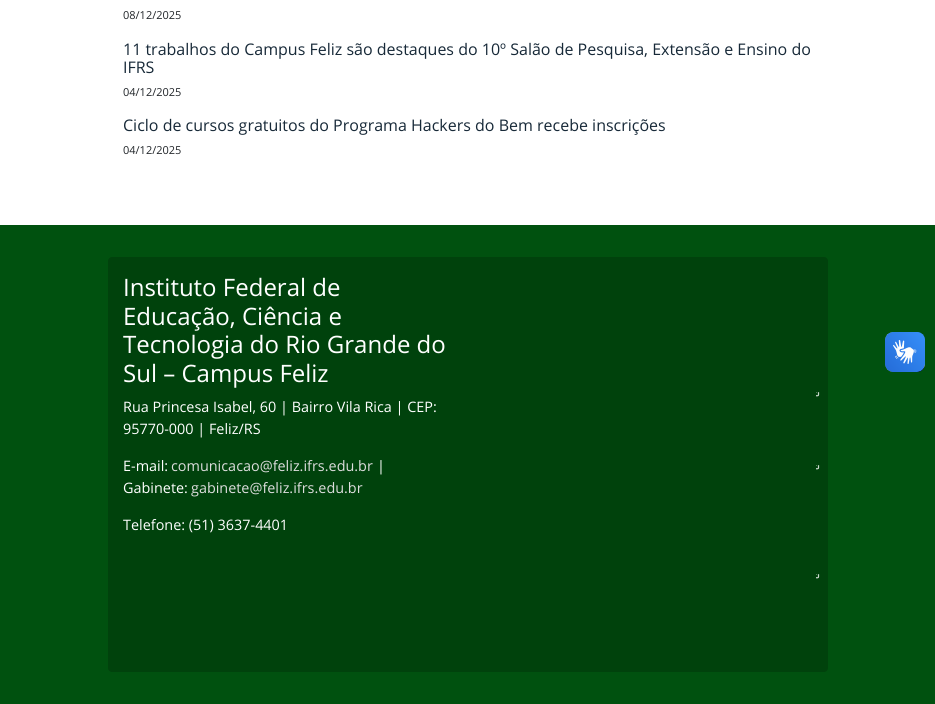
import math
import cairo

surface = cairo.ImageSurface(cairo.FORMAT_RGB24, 935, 704)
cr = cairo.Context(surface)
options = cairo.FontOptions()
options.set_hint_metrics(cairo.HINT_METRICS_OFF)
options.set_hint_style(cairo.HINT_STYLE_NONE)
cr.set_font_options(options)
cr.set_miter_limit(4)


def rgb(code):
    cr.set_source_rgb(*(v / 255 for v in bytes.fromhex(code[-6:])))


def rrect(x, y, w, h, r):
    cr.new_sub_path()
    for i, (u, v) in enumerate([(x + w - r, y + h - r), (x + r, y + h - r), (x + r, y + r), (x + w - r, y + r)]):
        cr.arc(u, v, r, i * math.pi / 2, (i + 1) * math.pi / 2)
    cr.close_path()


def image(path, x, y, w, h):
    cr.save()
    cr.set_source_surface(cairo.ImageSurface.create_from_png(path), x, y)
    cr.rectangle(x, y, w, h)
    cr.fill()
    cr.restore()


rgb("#ffffff")
cr.paint()
rgb("#00510f")
cr.rectangle(0, 225, 935, 479)
cr.fill()
rgb("#00420c")
rrect(108, 257, 720, 415, 4)
cr.fill()
image("img/1.png", 816, 392, 4, 5)
image("img/1.png", 816, 465, 4, 5)
image("img/1.png", 816, 574, 4, 5)
image("img/2.png", 885, 332, 40, 40)
image("img/3.png", 885, 332, 40, 40)
cr.select_font_face("Open Sans")
cr.set_font_size(11)
rgb("#212529")
cr.move_to(123, 19)
cr.show_text("08/12/2025")
cr.set_font_size(16)
rgb("#172938")
cr.move_to(123, 55)
cr.show_text("11 trabalhos do Campus Feliz são destaques do 10º Salão de Pesquisa, Extensão e Ensino do")
cr.move_to(123, 73)
cr.show_text("IFRS")
cr.set_font_size(11)
rgb("#212529")
cr.move_to(123, 96)
cr.show_text("04/12/2025")
cr.set_font_size(16)
rgb("#172938")
cr.move_to(123, 131)
cr.show_text("Ciclo de cursos gratuitos do Programa Hackers do Bem recebe inscrições")
cr.set_font_size(11)
rgb("#212529")
cr.move_to(123, 154)
cr.show_text("04/12/2025")
cr.set_font_size(24)
rgb("#ffffff")
for x, y, s in [
    (123, 296, "Instituto Federal de"),
    (123, 325, "Educação, Ciência e"),
    (123, 353, "Tecnologia do Rio Grande do"),
    (123, 382, "Sul – Campus Feliz"),
]:
    cr.move_to(x, y)
    cr.show_text(s)
cr.set_font_size(14.4)
for x, y, s in [
    (123, 412, "Rua Princesa Isabel, 60 | Bairro Vila Rica | CEP:"),
    (123, 434, "95770-000 | Feliz/RS"),
    (123, 471, "E-mail:"),
]:
    cr.move_to(x, y)
    cr.show_text(s)
rgb("#dddddd")
cr.move_to(171, 471)
cr.show_text("comunicacao@feliz.ifrs.edu.br")
rgb("#ffffff")
cr.move_to(377, 471)
cr.show_text("|")
cr.move_to(123, 493)
cr.show_text("Gabinete:")
rgb("#dddddd")
cr.move_to(191, 493)
cr.show_text("gabinete@feliz.ifrs.edu.br")
rgb("#ffffff")
cr.move_to(123, 530)
cr.show_text("Telefone: (51) 3637-4401")
surface.write_to_png("page.png")
